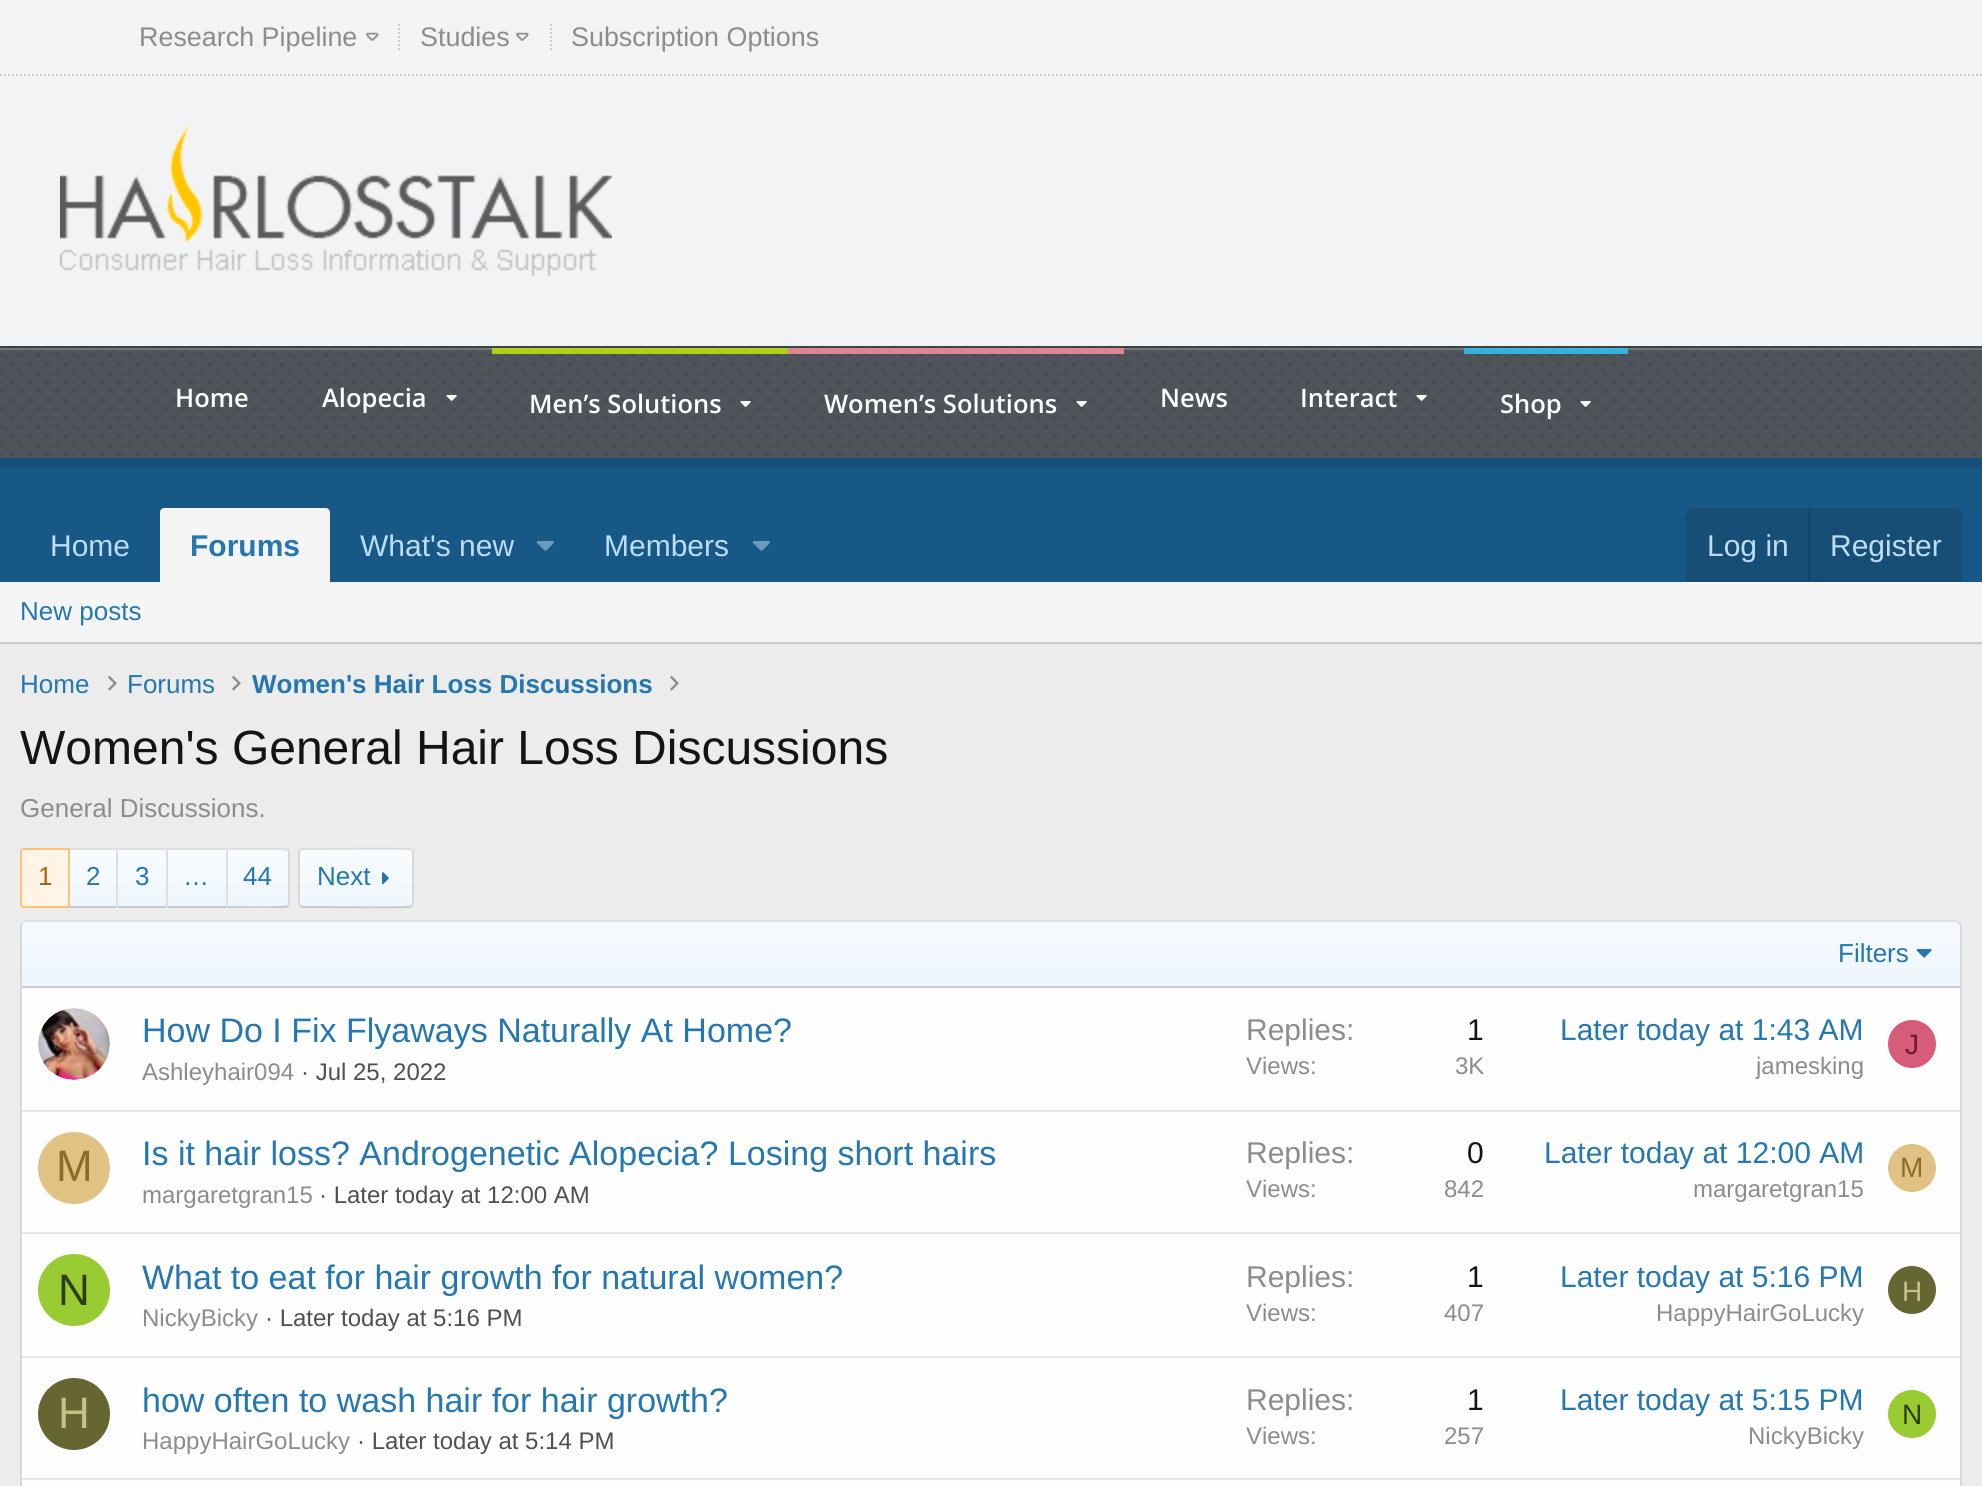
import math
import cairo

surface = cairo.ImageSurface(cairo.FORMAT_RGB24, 1982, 1486)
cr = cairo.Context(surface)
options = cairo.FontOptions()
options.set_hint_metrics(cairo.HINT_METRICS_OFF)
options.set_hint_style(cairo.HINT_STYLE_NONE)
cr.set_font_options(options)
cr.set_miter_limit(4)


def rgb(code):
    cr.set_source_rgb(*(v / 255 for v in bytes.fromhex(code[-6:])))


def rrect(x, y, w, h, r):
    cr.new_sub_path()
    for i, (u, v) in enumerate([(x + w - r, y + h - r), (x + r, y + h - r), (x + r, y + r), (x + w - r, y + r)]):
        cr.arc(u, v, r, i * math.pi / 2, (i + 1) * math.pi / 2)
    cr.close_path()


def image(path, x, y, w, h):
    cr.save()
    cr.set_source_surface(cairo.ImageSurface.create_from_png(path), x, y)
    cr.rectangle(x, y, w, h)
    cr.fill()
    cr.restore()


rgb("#ececec")
cr.paint()
rgb("#185886")
cr.rectangle(0, 468, 1982, 114)
cr.fill()
rgb("#f2f3f4")
cr.rectangle(0, 0, 1982, 346)
cr.fill()
cr.new_path()
cr.move_to(0, 75)
cr.line_to(1982, 75)
rgb("#cccccc")
cr.set_dash([2, 2])
cr.stroke()
cr.new_path()
cr.move_to(399, 24)
cr.line_to(399, 50)
cr.stroke()
image("img/1.png", 366, 32, 13, 9)
cr.new_path()
cr.move_to(551, 24)
cr.line_to(551, 50)
cr.stroke()
image("img/1.png", 516, 32, 13, 9)
image("img/2.png", 60, 126, 552, 151)
rgb("#164f79")
cr.rectangle(0, 458, 1982, 10)
cr.fill()
rgb("#3f484f")
cr.rectangle(0, 346, 1982, 112)
cr.fill()
image("img/3.png", 0, 346, 1982, 112)
cr.set_source_rgba(1, 1, 1, 0.2)
cr.rectangle(0, 348, 1982, 2)
cr.fill()
cr.set_source_rgba(0, 0, 0, 0.2)
cr.rectangle(0, 346, 1982, 2)
cr.fill()
image("img/4.png", 446, 395, 11, 6)
rgb("#b0d118")
cr.rectangle(492, 348, 296, 6)
cr.fill()
image("img/5.png", 740, 401, 11, 6)
rgb("#db8692")
cr.rectangle(788, 348, 336, 6)
cr.fill()
image("img/6.png", 1076, 401, 11, 6)
image("img/7.png", 1416, 395, 11, 6)
rgb("#35b3dc")
cr.rectangle(1464, 348, 164, 6)
cr.fill()
image("img/6.png", 1580, 401, 11, 6)
rgb("#f5f5f5")
cr.new_path()
cr.move_to(164, 508)
cr.line_to(326, 508)
cr.curve_to(328, 508, 330, 510, 330, 512)
cr.line_to(330, 582)
cr.line_to(160, 582)
cr.line_to(160, 512)
cr.curve_to(160, 510, 162, 508, 164, 508)
cr.close_path()
cr.fill()
image("img/8.png", 536, 541, 18, 10)
image("img/8.png", 752, 541, 18, 10)
rgb("#174e75")
cr.new_path()
cr.move_to(1694, 508)
cr.line_to(1954, 508)
cr.curve_to(1958.5, 508, 1962, 511.5, 1962, 516)
cr.line_to(1962, 582)
cr.line_to(1686, 582)
cr.line_to(1686, 516)
cr.curve_to(1686, 511.5, 1689.5, 508, 1694, 508)
cr.close_path()
cr.fill()
for x, y, w, h, color in [
    (1808, 508, 2, 74, "#174566"),
    (0, 582, 1982, 60, "#f5f5f5"),
    (0, 642, 1982, 2, "#cbcbcb"),
]:
    rgb(color)
    cr.rectangle(x, y, w, h)
    cr.fill()
image("img/9.png", 108, 676, 9, 15)
image("img/9.png", 232, 676, 9, 15)
image("img/9.png", 670, 676, 9, 15)
rgb("#fff4e5")
cr.new_path()
cr.move_to(24, 849)
cr.line_to(69, 849)
cr.line_to(69, 907)
cr.line_to(24, 907)
cr.curve_to(22.5, 907, 21, 905.5, 21, 904)
cr.line_to(21, 852)
cr.curve_to(21, 850.5, 22.5, 849, 24, 849)
cr.close_path()
cr.fill_preserve()
rgb("#f9c479")
cr.set_dash([])
cr.stroke()
gradient = cairo.LinearGradient(93, 906, 93, 850)
gradient.add_color_stop_rgba(0, 0.929, 0.965, 0.992, 1)
gradient.add_color_stop_rgba(1, 0.98, 0.988, 0.996, 1)
cr.set_source(gradient)
cr.rectangle(70, 850, 46, 56)
cr.fill()
rgb("#dfdfdf")
cr.rectangle(70, 848, 156, 2)
cr.fill()
rgb("#cbcbcb")
cr.rectangle(70, 906, 156, 2)
cr.fill()
gradient = cairo.LinearGradient(142, 906, 142, 850)
gradient.add_color_stop_rgba(0, 0.929, 0.965, 0.992, 1)
gradient.add_color_stop_rgba(1, 0.98, 0.988, 0.996, 1)
cr.set_source(gradient)
cr.rectangle(118, 850, 48, 56)
cr.fill()
rgb("#dfdfdf")
cr.rectangle(116, 848, 2, 60)
cr.fill()
gradient = cairo.LinearGradient(197, 906, 197, 850)
gradient.add_color_stop_rgba(0, 0.929, 0.965, 0.992, 1)
gradient.add_color_stop_rgba(1, 0.98, 0.988, 0.996, 1)
cr.set_source(gradient)
cr.rectangle(168, 850, 58, 56)
cr.fill()
rgb("#dfdfdf")
cr.rectangle(166, 848, 2, 60)
cr.fill()
gradient = cairo.LinearGradient(258, 906, 258, 850)
gradient.add_color_stop_rgba(0, 0.929, 0.965, 0.992, 1)
gradient.add_color_stop_rgba(1, 0.98, 0.988, 0.996, 1)
cr.set_source(gradient)
cr.rectangle(228, 850, 62, 56)
cr.fill()
cr.save()
cr.new_path()
cr.move_to(226, 848)
cr.line_to(286, 848)
cr.curve_to(288, 848, 290, 850, 290, 852)
cr.line_to(290, 904)
cr.curve_to(290, 906, 288, 908, 286, 908)
cr.line_to(226, 908)
cr.close_path()
cr.clip()
gradient = cairo.LinearGradient(258, 962, 258, 906)
gradient.add_color_stop_rgba(0, 0.929, 0.965, 0.992, 1)
gradient.add_color_stop_rgba(1, 0.98, 0.988, 0.996, 1)
cr.set_source(gradient)
cr.rectangle(226, 906, 64, 2)
cr.fill()
cr.restore()
rgb("#dfdfdf")
cr.new_path()
cr.move_to(226, 848)
cr.line_to(228, 850)
cr.curve_to(234, 850, 286, 849, 287, 851)
cr.line_to(289, 849)
cr.line_to(286, 848)
cr.close_path()
cr.fill()
rgb("#d8d8d8")
cr.new_path()
cr.move_to(290, 904)
cr.line_to(290, 852)
cr.line_to(289, 849)
cr.line_to(287, 851)
cr.line_to(288, 852)
cr.line_to(288, 904)
cr.line_to(287, 905)
cr.line_to(289, 907)
cr.close_path()
cr.fill()
rgb("#cbcbcb")
cr.new_path()
cr.move_to(286, 908)
cr.line_to(289, 907)
cr.line_to(287, 905)
cr.curve_to(286, 907, 234, 906, 228, 906)
cr.line_to(226, 908)
cr.close_path()
cr.fill()
rgb("#dfdfdf")
cr.new_path()
cr.move_to(226, 848)
cr.line_to(226, 908)
cr.line_to(228, 906)
cr.line_to(228, 850)
cr.close_path()
cr.fill()
cr.save()
rrect(298, 848, 116, 60, 4)
cr.clip()
gradient = cairo.LinearGradient(356, 850, 356, 794)
gradient.add_color_stop_rgba(0, 0.929, 0.965, 0.992, 1)
gradient.add_color_stop_rgba(1, 0.98, 0.988, 0.996, 1)
cr.set_source(gradient)
cr.rectangle(298, 848, 116, 2)
cr.fill()
gradient = cairo.LinearGradient(356, 906, 356, 850)
gradient.add_color_stop_rgba(0, 0.929, 0.965, 0.992, 1)
gradient.add_color_stop_rgba(1, 0.98, 0.988, 0.996, 1)
cr.set_source(gradient)
cr.rectangle(298, 850, 116, 56)
cr.fill()
gradient = cairo.LinearGradient(356, 962, 356, 906)
gradient.add_color_stop_rgba(0, 0.929, 0.965, 0.992, 1)
gradient.add_color_stop_rgba(1, 0.98, 0.988, 0.996, 1)
cr.set_source(gradient)
cr.rectangle(298, 906, 116, 2)
cr.fill()
cr.restore()
cr.new_path()
cr.move_to(300, 850)
cr.line_to(302, 849)
cr.line_to(320, 849)
cr.curve_to(329.5, 849, 409.5, 848, 411.5, 849.5)
cr.line_to(412, 850)
cr.stroke()
cr.new_path()
cr.move_to(412, 850)
cr.line_to(413, 851.5)
cr.line_to(413, 904.5)
cr.line_to(412, 906)
rgb("#d8d8d8")
cr.stroke()
cr.new_path()
cr.move_to(412, 906)
cr.line_to(411.5, 906.5)
cr.curve_to(409.5, 908, 329.5, 907, 320, 907)
cr.line_to(302, 907)
cr.line_to(300, 906)
rgb("#cbcbcb")
cr.stroke()
cr.new_path()
cr.move_to(300, 906)
cr.line_to(299, 904.5)
cr.line_to(299, 851.5)
cr.line_to(300, 850)
rgb("#d8d8d8")
cr.stroke()
image("img/10.png", 382, 872, 7, 13)
rgb("#fefefe")
rrect(20, 920, 1942, 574, 8)
cr.fill()
cr.new_path()
cr.move_to(23, 923)
cr.curve_to(24.5, 921.5, 26, 921, 28, 921)
cr.line_to(1954, 921)
cr.curve_to(1956, 921, 1957.5, 921.5, 1959, 923)
rgb("#dfdfdf")
cr.stroke()
cr.new_path()
cr.move_to(1959, 923)
cr.curve_to(1960.5, 924.5, 1961, 926, 1961, 928)
cr.line_to(1961, 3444)
cr.curve_to(1961, 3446, 1960.5, 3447.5, 1959, 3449)
rgb("#d8d8d8")
cr.stroke()
cr.new_path()
cr.move_to(23, 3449)
cr.curve_to(21.5, 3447.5, 21, 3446, 21, 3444)
cr.line_to(21, 928)
cr.curve_to(21, 926, 21.5, 924.5, 23, 923)
cr.stroke()
gradient = cairo.LinearGradient(991, 986, 991, 922)
gradient.add_color_stop_rgba(0, 0.929, 0.965, 0.992, 1)
gradient.add_color_stop_rgba(1, 0.965, 0.98, 0.996, 1)
cr.set_source(gradient)
cr.new_path()
cr.move_to(28, 922)
cr.line_to(1954, 922)
cr.curve_to(1957.5, 922, 1960, 924.5, 1960, 928)
cr.line_to(1960, 986)
cr.line_to(22, 986)
cr.line_to(22, 928)
cr.curve_to(22, 924.5, 24.5, 922, 28, 922)
cr.close_path()
cr.fill()
rgb("#cbcbcb")
cr.rectangle(22, 986, 1938, 2)
cr.fill()
image("img/11.png", 1916, 949, 16, 9)
image("img/12.png", 38, 1008, 72, 72)
rgb("#d65c7a")
cr.arc(1912, 1044, 24, 0, 2 * math.pi)
cr.fill()
rgb("#e7e7e7")
cr.rectangle(22, 1110, 1938, 2)
cr.fill()
rgb("#e0c285")
cr.arc(74, 1168, 36, 0, 2 * math.pi)
cr.fill()
cr.arc(1912, 1168, 24, 0, 2 * math.pi)
cr.fill()
rgb("#e7e7e7")
cr.rectangle(22, 1232, 1938, 2)
cr.fill()
rgb("#99cc33")
cr.arc(74, 1290, 36, 0, 2 * math.pi)
cr.fill()
rgb("#666633")
cr.arc(1912, 1290, 24, 0, 2 * math.pi)
cr.fill()
rgb("#e7e7e7")
cr.rectangle(22, 1356, 1938, 2)
cr.fill()
rgb("#666633")
cr.arc(74, 1414, 36, 0, 2 * math.pi)
cr.fill()
rgb("#99cc33")
cr.arc(1912, 1414, 24, 0, 2 * math.pi)
cr.fill()
rgb("#e7e7e7")
cr.rectangle(22, 1478, 1938, 2)
cr.fill()
cr.select_font_face("Liberation Sans")
cr.set_font_size(26.9)
rgb("#8c8c8c")
for x, y, s in [
    (139, 46, "Research Pipeline"),
    (420, 46, "Studies"),
    (571, 46, "Subscription Options"),
]:
    cr.move_to(x, y)
    cr.show_text(s)
cr.select_font_face("Open Sans SemiBold")
cr.set_font_size(25.5)
rgb("#ffffff")
for x, y, s in [
    (175, 407, "Home"),
    (322, 407, "Alopecia"),
    (529, 413, "Men’s Solutions"),
    (824, 413, "Women’s Solutions"),
    (1160, 407, "News"),
    (1300, 407, "Interact"),
    (1500, 413, "Shop"),
]:
    cr.move_to(x, y)
    cr.show_text(s)
cr.select_font_face("Liberation Sans")
cr.set_font_size(30)
rgb("#bcdef5")
cr.move_to(50, 556)
cr.show_text("Home")
cr.select_font_face("Liberation Sans", cairo.FONT_SLANT_NORMAL, cairo.FONT_WEIGHT_BOLD)
rgb("#2577b1")
cr.move_to(190, 556)
cr.show_text("Forums")
cr.select_font_face("Liberation Sans")
rgb("#bcdef5")
for x, y, s in [
    (360, 556, "What's new"),
    (604, 556, "Members"),
    (1707, 556, "Log in"),
    (1830, 556, "Register"),
]:
    cr.move_to(x, y)
    cr.show_text(s)
cr.set_font_size(26)
rgb("#2577b1")
for x, y, s in [
    (20, 620, "New posts"),
    (20, 693, "Home"),
    (127, 693, "Forums"),
]:
    cr.move_to(x, y)
    cr.show_text(s)
cr.select_font_face("Liberation Sans", cairo.FONT_SLANT_NORMAL, cairo.FONT_WEIGHT_BOLD)
cr.move_to(252, 693)
cr.show_text("Women's Hair Loss Discussions")
cr.select_font_face("Liberation Sans")
cr.set_font_size(48)
rgb("#141414")
cr.move_to(20, 764)
cr.show_text("Women's General Hair Loss Discussions")
cr.set_font_size(26)
rgb("#8c8c8c")
cr.move_to(20, 817)
cr.show_text("General Discussions.")
rgb("#aa6709")
cr.move_to(38, 885)
cr.show_text("1")
rgb("#2577b1")
for x, y, s in [
    (86, 885, "2"),
    (135, 885, "3"),
    (183, 885, "…"),
    (243, 885, "44"),
    (317, 885, "Next"),
    (1838, 962, "Filters"),
]:
    cr.move_to(x, y)
    cr.show_text(s)
cr.set_font_size(34)
cr.move_to(142, 1042)
cr.show_text("How Do I Fix Flyaways Naturally At Home?")
cr.set_font_size(24)
rgb("#8c8c8c")
cr.move_to(142, 1080)
cr.show_text("Ashleyhair094")
rgb("#505050")
cr.move_to(301, 1080)
cr.show_text("· Jul 25, 2022")
cr.set_font_size(30)
rgb("#8c8c8c")
cr.move_to(1246, 1040)
cr.show_text("Replies:")
rgb("#141414")
cr.move_to(1467, 1040)
cr.show_text("1")
cr.set_font_size(24)
rgb("#8c8c8c")
cr.move_to(1246, 1074)
cr.show_text("Views:")
cr.move_to(1455, 1074)
cr.show_text("3K")
cr.set_font_size(30)
rgb("#2577b1")
cr.move_to(1560, 1040)
cr.show_text("Later today at 1:43 AM")
cr.set_font_size(24)
rgb("#8c8c8c")
cr.move_to(1756, 1074)
cr.show_text("jamesking")
cr.set_font_size(28)
rgb("#661a2d")
cr.move_to(1905, 1054)
cr.show_text("J")
cr.set_font_size(44)
rgb("#8f6b24")
cr.move_to(56, 1181)
cr.show_text("M")
cr.set_font_size(34)
rgb("#2577b1")
cr.move_to(142, 1165)
cr.show_text("Is it hair loss? Androgenetic Alopecia? Losing short hairs")
cr.set_font_size(24)
rgb("#8c8c8c")
cr.move_to(142, 1203)
cr.show_text("margaretgran15")
rgb("#505050")
cr.move_to(319, 1203)
cr.show_text("· Later today at 12:00 AM")
cr.set_font_size(30)
rgb("#8c8c8c")
cr.move_to(1246, 1163)
cr.show_text("Replies:")
rgb("#141414")
cr.move_to(1467, 1163)
cr.show_text("0")
cr.set_font_size(24)
rgb("#8c8c8c")
cr.move_to(1246, 1197)
cr.show_text("Views:")
cr.move_to(1444, 1197)
cr.show_text("842")
cr.set_font_size(30)
rgb("#2577b1")
cr.move_to(1544, 1163)
cr.show_text("Later today at 12:00 AM")
cr.set_font_size(24)
rgb("#8c8c8c")
cr.move_to(1693, 1197)
cr.show_text("margaretgran15")
cr.set_font_size(28)
rgb("#8f6b24")
cr.move_to(1900, 1177)
cr.show_text("M")
cr.set_font_size(44)
rgb("#2e3d0f")
cr.move_to(58, 1305)
cr.show_text("N")
cr.set_font_size(34)
rgb("#2577b1")
cr.move_to(142, 1289)
cr.show_text("What to eat for hair growth for natural women?")
cr.set_font_size(24)
rgb("#8c8c8c")
cr.move_to(142, 1326)
cr.show_text("NickyBicky")
rgb("#505050")
cr.move_to(265, 1326)
cr.show_text("· Later today at 5:16 PM")
cr.set_font_size(30)
rgb("#8c8c8c")
cr.move_to(1246, 1287)
cr.show_text("Replies:")
rgb("#141414")
cr.move_to(1467, 1287)
cr.show_text("1")
cr.set_font_size(24)
rgb("#8c8c8c")
cr.move_to(1246, 1321)
cr.show_text("Views:")
cr.move_to(1444, 1321)
cr.show_text("407")
cr.set_font_size(30)
rgb("#2577b1")
cr.move_to(1560, 1287)
cr.show_text("Later today at 5:16 PM")
cr.set_font_size(24)
rgb("#8c8c8c")
cr.move_to(1656, 1321)
cr.show_text("HappyHairGoLucky")
cr.set_font_size(28)
rgb("#c3c388")
cr.move_to(1902, 1301)
cr.show_text("H")
cr.set_font_size(44)
cr.move_to(58, 1428)
cr.show_text("H")
cr.set_font_size(34)
rgb("#2577b1")
cr.move_to(142, 1412)
cr.show_text("how often to wash hair for hair growth?")
cr.set_font_size(24)
rgb("#8c8c8c")
cr.move_to(142, 1449)
cr.show_text("HappyHairGoLucky")
rgb("#505050")
cr.move_to(357, 1449)
cr.show_text("· Later today at 5:14 PM")
cr.set_font_size(30)
rgb("#8c8c8c")
cr.move_to(1246, 1410)
cr.show_text("Replies:")
rgb("#141414")
cr.move_to(1467, 1410)
cr.show_text("1")
cr.set_font_size(24)
rgb("#8c8c8c")
cr.move_to(1246, 1444)
cr.show_text("Views:")
cr.move_to(1444, 1444)
cr.show_text("257")
cr.set_font_size(30)
rgb("#2577b1")
cr.move_to(1560, 1410)
cr.show_text("Later today at 5:15 PM")
cr.set_font_size(24)
rgb("#8c8c8c")
cr.move_to(1748, 1444)
cr.show_text("NickyBicky")
cr.set_font_size(28)
rgb("#2e3d0f")
cr.move_to(1902, 1424)
cr.show_text("N")
surface.write_to_png("page.png")
